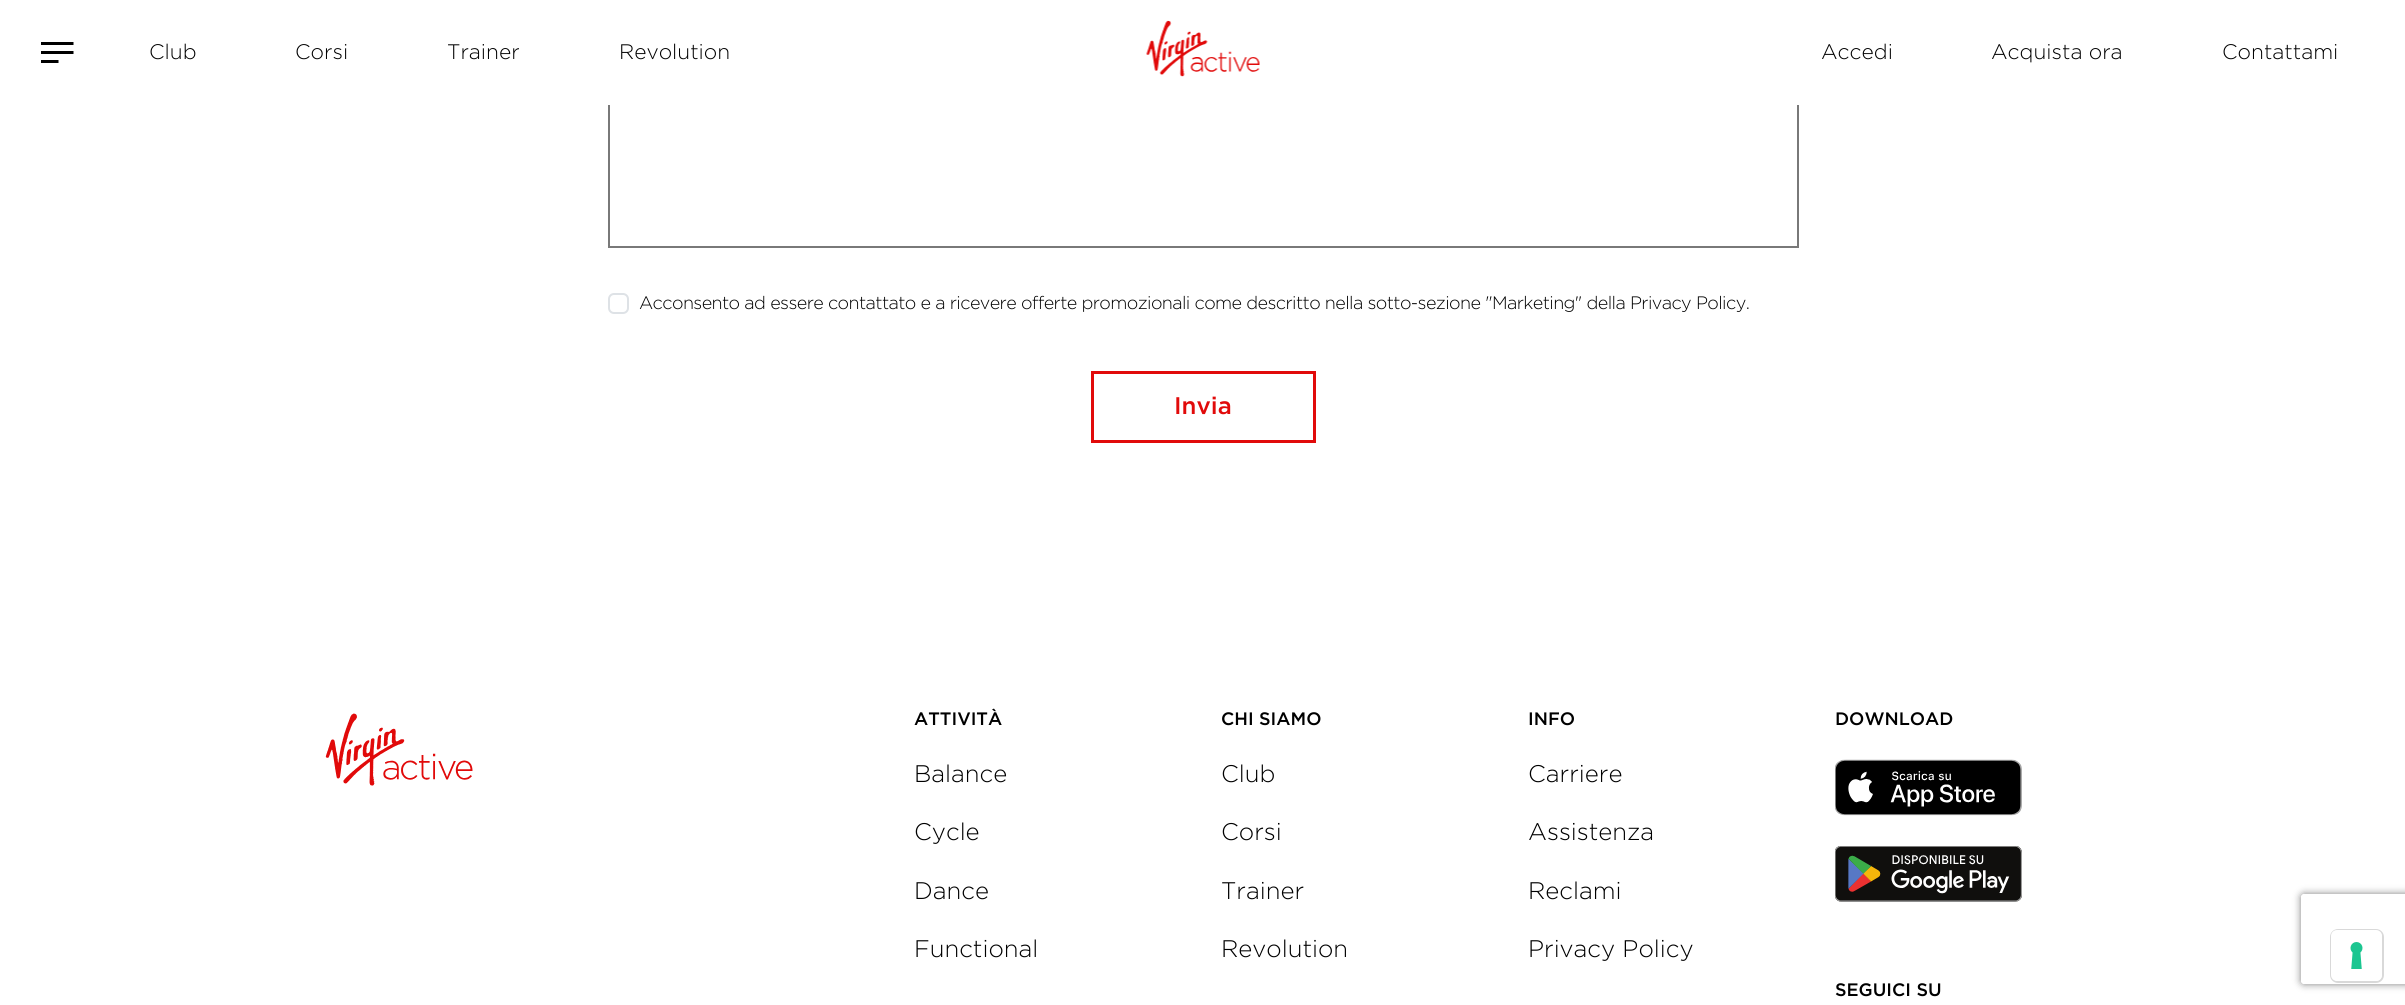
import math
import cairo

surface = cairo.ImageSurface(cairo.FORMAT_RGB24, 2405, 1005)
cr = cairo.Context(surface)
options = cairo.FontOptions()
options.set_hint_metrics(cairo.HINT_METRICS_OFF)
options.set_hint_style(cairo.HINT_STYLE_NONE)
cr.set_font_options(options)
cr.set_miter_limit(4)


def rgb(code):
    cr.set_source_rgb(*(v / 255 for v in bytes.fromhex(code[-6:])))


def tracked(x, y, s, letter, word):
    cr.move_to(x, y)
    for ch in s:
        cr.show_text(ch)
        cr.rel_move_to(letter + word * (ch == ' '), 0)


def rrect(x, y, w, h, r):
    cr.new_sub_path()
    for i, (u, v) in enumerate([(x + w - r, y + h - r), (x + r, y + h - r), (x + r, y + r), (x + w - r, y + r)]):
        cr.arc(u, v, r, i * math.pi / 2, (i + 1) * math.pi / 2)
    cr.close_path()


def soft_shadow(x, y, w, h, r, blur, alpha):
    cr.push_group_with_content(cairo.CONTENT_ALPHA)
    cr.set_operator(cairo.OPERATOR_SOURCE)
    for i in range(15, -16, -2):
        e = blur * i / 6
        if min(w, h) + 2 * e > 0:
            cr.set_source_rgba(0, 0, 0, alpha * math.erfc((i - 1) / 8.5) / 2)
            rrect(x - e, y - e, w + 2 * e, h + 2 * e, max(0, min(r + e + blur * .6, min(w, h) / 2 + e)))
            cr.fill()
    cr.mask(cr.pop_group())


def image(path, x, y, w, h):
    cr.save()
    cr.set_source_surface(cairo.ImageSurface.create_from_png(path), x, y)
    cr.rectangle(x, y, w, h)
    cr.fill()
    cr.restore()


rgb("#ffffff")
cr.paint()
cr.rectangle(609, 69, 1189, 178)
rgb("#797979")
cr.stroke()
rgb("#ffffff")
cr.rectangle(608, 68, 1191, 37)
cr.fill()
cr.save()
cr.rectangle(41, 42, 33, 21)
cr.clip()
rgb("#000000")
cr.set_fill_rule(cairo.FILL_RULE_EVEN_ODD)
cr.new_path()
cr.move_to(73.5, 42)
cr.line_to(40.5, 42)
cr.line_to(40.5, 45)
cr.line_to(73.5, 45)
cr.close_path()
cr.move_to(73.5, 51)
cr.line_to(40.5, 51)
cr.line_to(40.5, 54)
cr.line_to(73.5, 54)
cr.close_path()
cr.move_to(58.5, 60)
cr.line_to(40.5, 60)
cr.line_to(40.5, 63)
cr.line_to(58.5, 63)
cr.close_path()
cr.fill()
cr.restore()
image("img/1.png", 1146, 20, 114, 57)
rrect(609, 294, 19, 19, 5)
rgb("#dee2e6")
cr.stroke()
cr.rectangle(1092.5, 372.5, 222, 69)
rgb("#e10a0a")
cr.set_line_width(3)
cr.stroke()
image("img/2.png", 325, 713, 148, 73)
image("img/3.png", 1835, 759, 187, 57)
image("img/4.png", 1835, 846, 187, 56)
cr.save()
cr.set_fill_rule(cairo.FILL_RULE_EVEN_ODD)
cr.new_path()
cr.move_to(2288, 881)
cr.line_to(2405, 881)
cr.line_to(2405, 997)
cr.line_to(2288, 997)
cr.close_path()
cr.move_to(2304, 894)
cr.line_to(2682, 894)
cr.curve_to(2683.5, 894, 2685, 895.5, 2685, 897)
cr.line_to(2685, 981)
cr.curve_to(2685, 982.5, 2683.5, 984, 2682, 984)
cr.line_to(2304, 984)
cr.curve_to(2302.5, 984, 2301, 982.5, 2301, 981)
cr.line_to(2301, 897)
cr.curve_to(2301, 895.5, 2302.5, 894, 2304, 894)
cr.close_path()
cr.clip()
rgb("#808080")
soft_shadow(2301, 894, 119, 90, 3, 4, 1)
cr.restore()
rrect(2331, 930, 52, 52, 7)
rgb("#d9d9d9")
cr.set_line_width(2)
cr.stroke()
rgb("#ffffff")
rrect(2331, 930, 51, 51, 6)
cr.fill()
image("img/5.png", 2350, 942, 13, 27)
cr.select_font_face("Gotham Light")
cr.set_font_size(21)
rgb("#000000")
for x, y, s in [
    (149, 59, "Club"),
    (295, 59, "Corsi"),
    (447, 59, "Trainer"),
    (619, 59, "Revolution"),
    (1821, 59, "Accedi"),
    (1991, 59, "Acquista ora"),
    (2222, 59, "Contattami"),
]:
    cr.move_to(x, y)
    cr.show_text(s)
cr.set_font_size(18)
tracked(639, 309, "Acconsento ad essere contattato e a ricevere offerte promozionali come descritto nella sotto-sezione \"Marketing\" della Privacy Policy.", -0.6, 0)
cr.select_font_face("Gotham Medium")
cr.set_font_size(24)
rgb("#e10a0a")
cr.move_to(1174, 414)
cr.show_text("Invia")
cr.set_font_size(18)
rgb("#000000")
cr.move_to(914, 725)
cr.show_text("ATTIVITÀ")
cr.select_font_face("Gotham Light")
cr.set_font_size(24)
for x, y, s in [
    (914, 782, "Balance"),
    (914, 840, "Cycle"),
    (914, 899, "Dance"),
    (914, 957, "Functional"),
]:
    cr.move_to(x, y)
    cr.show_text(s)
cr.select_font_face("Gotham Medium")
cr.set_font_size(18)
cr.move_to(1221, 725)
cr.show_text("CHI SIAMO")
cr.select_font_face("Gotham Light")
cr.set_font_size(24)
for x, y, s in [
    (1221, 782, "Club"),
    (1221, 840, "Corsi"),
    (1221, 899, "Trainer"),
    (1221, 957, "Revolution"),
]:
    cr.move_to(x, y)
    cr.show_text(s)
cr.select_font_face("Gotham Medium")
cr.set_font_size(18)
cr.move_to(1528, 725)
cr.show_text("INFO")
cr.select_font_face("Gotham Light")
cr.set_font_size(24)
for x, y, s in [
    (1528, 782, "Carriere"),
    (1528, 840, "Assistenza"),
    (1528, 899, "Reclami"),
    (1528, 957, "Privacy Policy"),
]:
    cr.move_to(x, y)
    cr.show_text(s)
cr.select_font_face("Gotham Medium")
cr.set_font_size(18)
cr.move_to(1835, 725)
cr.show_text("DOWNLOAD")
cr.move_to(1835, 996)
cr.show_text("SEGUICI SU")
surface.write_to_png("page.png")
